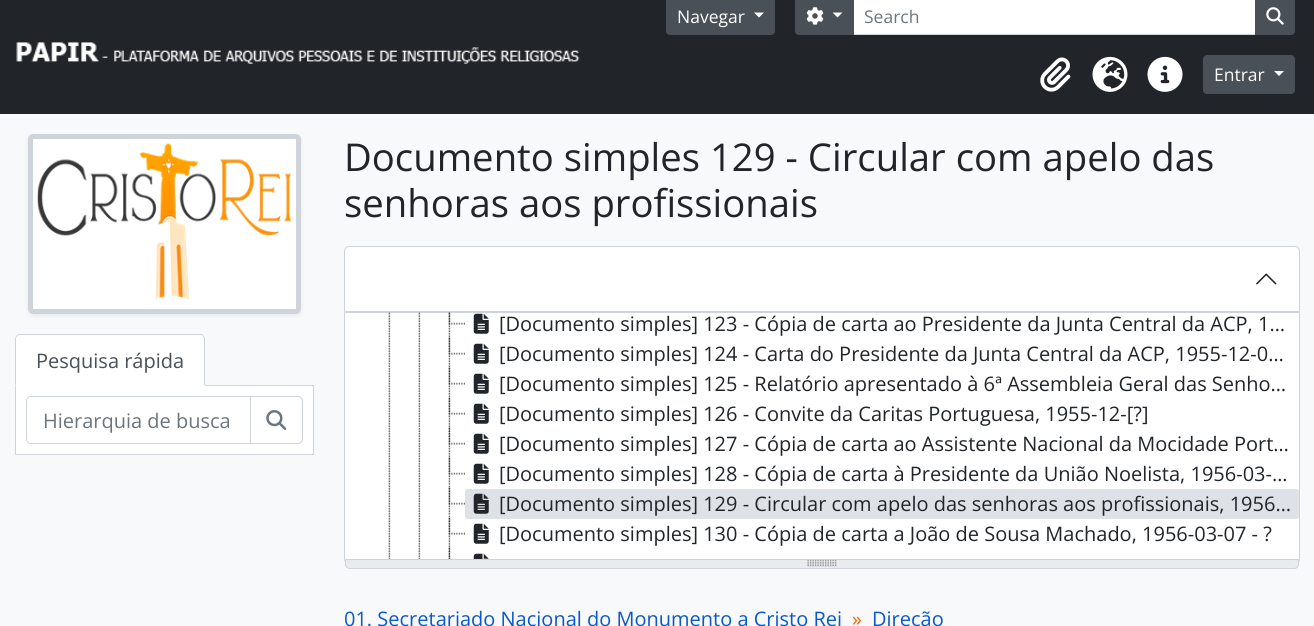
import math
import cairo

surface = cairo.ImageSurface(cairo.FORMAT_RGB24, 1314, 626)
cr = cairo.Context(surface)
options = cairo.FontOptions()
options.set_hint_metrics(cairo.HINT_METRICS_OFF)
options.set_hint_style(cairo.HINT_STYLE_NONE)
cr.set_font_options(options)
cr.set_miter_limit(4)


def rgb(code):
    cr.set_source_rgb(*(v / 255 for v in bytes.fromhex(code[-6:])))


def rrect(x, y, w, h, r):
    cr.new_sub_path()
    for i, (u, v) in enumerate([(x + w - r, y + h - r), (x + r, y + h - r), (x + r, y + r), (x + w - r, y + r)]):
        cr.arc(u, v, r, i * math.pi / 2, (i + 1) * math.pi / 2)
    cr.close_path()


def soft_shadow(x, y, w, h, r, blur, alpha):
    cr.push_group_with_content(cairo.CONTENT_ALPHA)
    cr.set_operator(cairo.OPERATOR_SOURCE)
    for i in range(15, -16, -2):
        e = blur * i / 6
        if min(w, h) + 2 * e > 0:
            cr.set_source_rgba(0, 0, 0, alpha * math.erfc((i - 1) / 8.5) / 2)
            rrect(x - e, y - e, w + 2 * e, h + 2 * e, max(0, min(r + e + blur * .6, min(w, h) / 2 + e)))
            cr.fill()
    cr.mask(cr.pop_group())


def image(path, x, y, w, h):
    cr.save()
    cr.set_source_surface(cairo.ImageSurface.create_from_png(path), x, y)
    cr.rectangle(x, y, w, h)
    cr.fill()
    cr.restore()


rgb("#f8f9fa")
cr.paint()
rgb("#212529")
cr.rectangle(0, 0, 1314, 114)
cr.fill()
image("img/1.png", 16, 42, 564, 22)
rgb("#495057")
rrect(666.5, -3.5, 108, 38, 3.5)
cr.fill_preserve()
cr.set_line_width(1)
cr.stroke()
rgb("#ffffff")
cr.new_path()
cr.move_to(754, 12.5)
cr.line_to(764, 12.5)
cr.line_to(759, 17.5)
cr.close_path()
cr.fill()
cr.rectangle(853.5, -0.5, 402, 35)
cr.fill_preserve()
rgb("#ced4da")
cr.stroke()
rgb("#495057")
cr.new_path()
cr.move_to(799, -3.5)
cr.line_to(853.5, -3.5)
cr.line_to(853.5, 34.5)
cr.line_to(799, 34.5)
cr.curve_to(797, 34.5, 795.5, 33, 795.5, 31)
cr.line_to(795.5, 0)
cr.curve_to(795.5, -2, 797, -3.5, 799, -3.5)
cr.close_path()
cr.fill_preserve()
cr.stroke()
image("img/2.png", 806, 7, 18, 18)
rgb("#ffffff")
cr.new_path()
cr.move_to(832.5, 12.5)
cr.line_to(842.5, 12.5)
cr.line_to(837.5, 17.5)
cr.close_path()
cr.fill()
rgb("#495057")
cr.new_path()
cr.move_to(1255.5, -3.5)
cr.line_to(1291, -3.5)
cr.curve_to(1293, -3.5, 1294.5, -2, 1294.5, 0)
cr.line_to(1294.5, 31)
cr.curve_to(1294.5, 33, 1293, 34.5, 1291, 34.5)
cr.line_to(1255.5, 34.5)
cr.close_path()
cr.fill_preserve()
cr.stroke()
image("img/3.png", 1266, 7, 18, 18)
image("img/4.png", 1040, 57, 31, 35)
image("img/5.png", 1092, 56, 36, 36)
image("img/6.png", 1147, 56, 36, 36)
rrect(1203.5, 55.5, 91, 38, 3.5)
cr.fill_preserve()
cr.stroke()
rgb("#ffffff")
cr.new_path()
cr.move_to(1274, 71)
cr.line_to(1284, 71)
cr.line_to(1279, 76)
cr.close_path()
cr.fill()
rgb("#000000")
soft_shadow(28, 136, 273, 180, 5, 2.5, 0.07)
rgb("#ffffff")
rrect(30.5, 136.5, 268, 175, 2.5)
cr.fill_preserve()
rgb("#ced4da")
cr.set_line_width(5)
cr.stroke()
image("img/7.png", 37, 143, 255, 157)
rgb("#ffffff")
cr.rectangle(15.5, 385.5, 298, 69)
cr.fill_preserve()
rgb("#ced4da")
cr.set_line_width(1)
cr.stroke()
rgb("#ffffff")
cr.new_path()
cr.move_to(20, 334)
cr.line_to(200, 334)
cr.curve_to(203, 334, 205, 336, 205, 339)
cr.line_to(205, 386)
cr.line_to(15, 386)
cr.line_to(15, 339)
cr.curve_to(15, 336, 17, 334, 20, 334)
cr.close_path()
cr.fill()
rgb("#ced4da")
cr.new_path()
cr.move_to(20, 334)
cr.curve_to(19, 334, 17, 334, 17, 335)
cr.line_to(17, 336)
cr.curve_to(18, 335, 19, 335, 20, 335)
cr.line_to(200, 335)
cr.curve_to(201, 335, 202, 335, 203, 336)
cr.line_to(203, 335)
cr.curve_to(203, 334, 201, 334, 200, 334)
cr.close_path()
cr.fill()
cr.new_path()
cr.move_to(203, 335)
cr.curve_to(204, 336, 205, 337, 205, 339)
cr.line_to(205, 386)
cr.line_to(204, 385)
cr.line_to(204, 338)
cr.line_to(203, 336)
cr.close_path()
cr.fill()
rgb("#ffffff")
cr.new_path()
cr.move_to(205, 386)
cr.line_to(15, 386)
cr.line_to(16, 385)
cr.line_to(204, 385)
cr.close_path()
cr.fill()
rgb("#ced4da")
cr.new_path()
cr.move_to(15, 339)
cr.line_to(15, 386)
cr.line_to(16, 385)
cr.line_to(16, 338)
cr.line_to(17, 336)
cr.line_to(17, 335)
cr.curve_to(16, 336, 15, 337, 15, 339)
cr.close_path()
cr.fill()
cr.new_path()
cr.move_to(31, 396.5)
cr.line_to(250.5, 396.5)
cr.line_to(250.5, 443.5)
cr.line_to(31, 443.5)
cr.curve_to(28.5, 443.5, 26.5, 441.5, 26.5, 439)
cr.line_to(26.5, 401)
cr.curve_to(26.5, 398.5, 28.5, 396.5, 31, 396.5)
cr.close_path()
cr.stroke()
rgb("#ffffff")
cr.new_path()
cr.move_to(250.5, 396.5)
cr.line_to(298, 396.5)
cr.curve_to(300.5, 396.5, 302.5, 398.5, 302.5, 401)
cr.line_to(302.5, 439)
cr.curve_to(302.5, 441.5, 300.5, 443.5, 298, 443.5)
cr.line_to(250.5, 443.5)
cr.close_path()
cr.fill_preserve()
rgb("#ced4da")
cr.stroke()
image("img/8.png", 266, 410, 21, 20)
rgb("#ffffff")
rrect(344.5, 246.5, 955, 317, 4.5)
cr.fill_preserve()
rgb("#ced4da")
cr.stroke()
cr.rectangle(345, 311, 954, 2)
cr.fill()
image("img/9.png", 1256, 273, 21, 12)
image("img/10.png", 388, 312, 3, 247)
image("img/11.png", 418, 312, 3, 247)
image("img/12.png", 448, 312, 3, 26)
image("img/13.png", 448, 312, 17, 13)
image("img/14.png", 473, 313, 16, 21)
image("img/15.png", 448, 337, 3, 31)
image("img/16.png", 448, 337, 17, 18)
image("img/14.png", 473, 343, 16, 21)
image("img/15.png", 448, 367, 3, 31)
image("img/16.png", 448, 367, 17, 18)
image("img/14.png", 473, 373, 16, 21)
image("img/15.png", 448, 397, 3, 31)
image("img/16.png", 448, 397, 17, 18)
image("img/14.png", 473, 403, 16, 21)
image("img/15.png", 448, 427, 3, 31)
image("img/16.png", 448, 427, 17, 18)
image("img/14.png", 473, 433, 16, 21)
image("img/17.png", 448, 457, 3, 31)
image("img/16.png", 448, 457, 17, 18)
image("img/14.png", 473, 463, 16, 21)
image("img/17.png", 448, 487, 3, 31)
image("img/16.png", 448, 487, 17, 18)
rgb("#dee2e6")
rrect(465, 489, 834, 30, 2.5)
cr.fill()
image("img/18.png", 473, 493, 16, 21)
image("img/15.png", 448, 517, 3, 31)
image("img/16.png", 448, 517, 17, 18)
image("img/14.png", 473, 523, 16, 21)
image("img/19.png", 448, 547, 3, 12)
image("img/20.png", 448, 547, 3, 12)
image("img/21.png", 473, 553, 16, 6)
rgb("#e9ecef")
cr.new_path()
cr.move_to(345, 559)
cr.line_to(1299, 559)
cr.line_to(1299, 564)
cr.curve_to(1299, 567, 1297, 569, 1294, 569)
cr.line_to(350, 569)
cr.curve_to(347, 569, 345, 567, 345, 564)
cr.close_path()
cr.fill()
image("img/22.png", 807, 560, 30, 7)
cr.new_path()
cr.move_to(345.5, 559.5)
cr.line_to(1298.5, 559.5)
cr.line_to(1298.5, 564)
cr.curve_to(1298.5, 566.5, 1296.5, 568.5, 1294, 568.5)
cr.line_to(350, 568.5)
cr.curve_to(347.5, 568.5, 345.5, 566.5, 345.5, 564)
cr.close_path()
rgb("#ced4da")
cr.stroke()
cr.select_font_face("Open Sans")
cr.set_font_size(17.5)
rgb("#ffffff")
cr.move_to(677, 23)
cr.show_text("Navegar")
rgb("#6c757d")
cr.move_to(864, 23)
cr.show_text("Search")
rgb("#ffffff")
cr.move_to(1214, 81)
cr.show_text("Entrar")
cr.set_font_size(20)
rgb("#495057")
cr.move_to(36, 368)
cr.show_text("Pesquisa rápida")
rgb("#6c757d")
cr.move_to(43, 428)
cr.show_text("Hierarquia de busca")
cr.set_font_size(38.3)
rgb("#212529")
cr.move_to(344, 171)
cr.show_text("Documento simples 129 - Circular com apelo das")
cr.move_to(344, 217)
cr.show_text("senhoras aos profissionais")
cr.set_font_size(20)
for x, y, s in [
    (499, 331, "[Documento simples] 123 - Cópia de carta ao Presidente da Junta Central da ACP, 1…"),
    (499, 361, "[Documento simples] 124 - Carta do Presidente da Junta Central da ACP, 1955-12-0…"),
    (499, 391, "[Documento simples] 125 - Relatório apresentado à 6ª Assembleia Geral das Senho…"),
    (499, 421, "[Documento simples] 126 - Convite da Caritas Portuguesa, 1955-12-[?]"),
    (499, 451, "[Documento simples] 127 - Cópia de carta ao Assistente Nacional da Mocidade Port…"),
    (499, 481, "[Documento simples] 128 - Cópia de carta à Presidente da União Noelista, 1956-03-…"),
    (499, 511, "[Documento simples] 129 - Circular com apelo das senhoras aos profissionais, 1956…"),
    (499, 541, "[Documento simples] 130 - Cópia de carta a João de Sousa Machado, 1956-03-07 - ?"),
]:
    cr.move_to(x, y)
    cr.show_text(s)
rgb("#0a58ca")
cr.move_to(344, 626)
cr.show_text("01. Secretariado Nacional do Monumento a Cristo Rei")
rgb("#ff6600")
cr.move_to(852, 626)
cr.show_text("»")
rgb("#0a58ca")
cr.move_to(872, 626)
cr.show_text("Direção")
surface.write_to_png("page.png")
